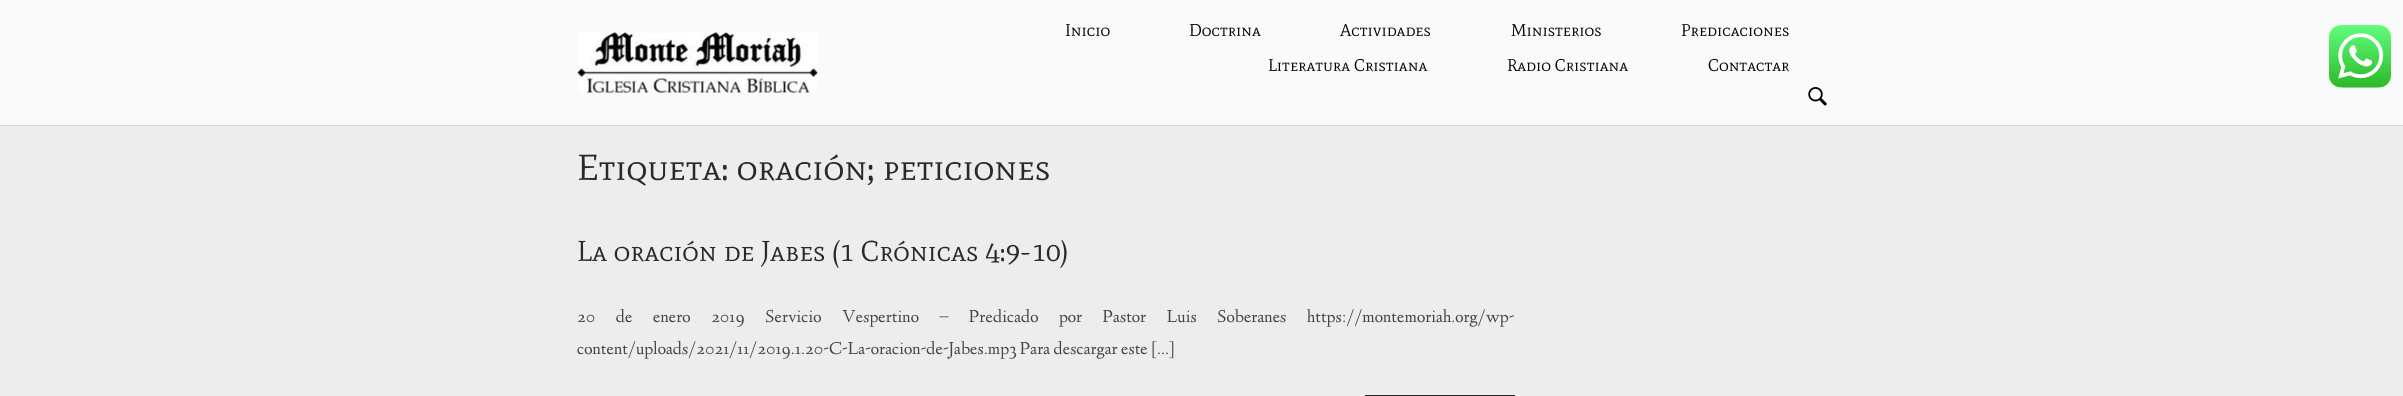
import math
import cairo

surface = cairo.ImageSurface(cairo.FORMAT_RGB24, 2403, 396)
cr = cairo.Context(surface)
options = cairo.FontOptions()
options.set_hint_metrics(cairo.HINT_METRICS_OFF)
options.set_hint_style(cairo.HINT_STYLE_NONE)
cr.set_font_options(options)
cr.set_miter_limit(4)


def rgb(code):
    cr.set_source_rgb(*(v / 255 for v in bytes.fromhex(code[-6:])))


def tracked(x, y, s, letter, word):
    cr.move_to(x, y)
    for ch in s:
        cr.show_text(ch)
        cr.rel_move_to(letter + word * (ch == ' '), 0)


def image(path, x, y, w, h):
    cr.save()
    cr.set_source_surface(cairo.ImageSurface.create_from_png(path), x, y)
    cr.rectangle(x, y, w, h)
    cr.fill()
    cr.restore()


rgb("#ededed")
cr.paint()
rgb("#fafafa")
cr.rectangle(0, 0, 2403, 125)
cr.fill()
rgb("#d4d4d4")
cr.rectangle(0, 125, 2403, 1)
cr.fill()
image("img/1.png", 577, 32, 241, 61)
image("img/2.png", 1808, 87, 19, 19)
cr.rectangle(1365.5, 395.5, 149, 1)
rgb("#292929")
cr.set_line_width(1)
cr.stroke()
image("img/3.png", 2329, 25, 62, 63)
cr.select_font_face("Mate SC")
cr.set_font_size(17)
rgb("#000000")
for x, y, s in [
    (1065, 36, "Inicio"),
    (1189, 36, "Doctrina"),
    (1340, 36, "Actividades"),
    (1511, 36, "Ministerios"),
    (1681, 36, "Predicaciones"),
    (1268, 71, "Literatura Cristiana"),
    (1507, 71, "Radio Cristiana"),
    (1708, 71, "Contactar"),
]:
    cr.move_to(x, y)
    cr.show_text(s)
cr.set_font_size(36.25)
rgb("#292929")
cr.move_to(577, 180)
cr.show_text("Etiqueta: oración; peticiones")
cr.set_font_size(28.75)
cr.move_to(577, 261)
cr.show_text("La oración de Jabes (1 Crónicas 4:9-10)")
cr.select_font_face("Linden Hill")
cr.set_font_size(18)
rgb("#424242")
tracked(577, 322, "20 de enero 2019 Servicio Vespertino – Predicado por Pastor Luis Soberanes https://montemoriah.org/wp-", 0, 17.25)
cr.move_to(577, 354)
cr.show_text("content/uploads/2021/11/2019.1.20-C-La-oracion-de-Jabes.mp3 Para descargar este […]")
surface.write_to_png("page.png")
